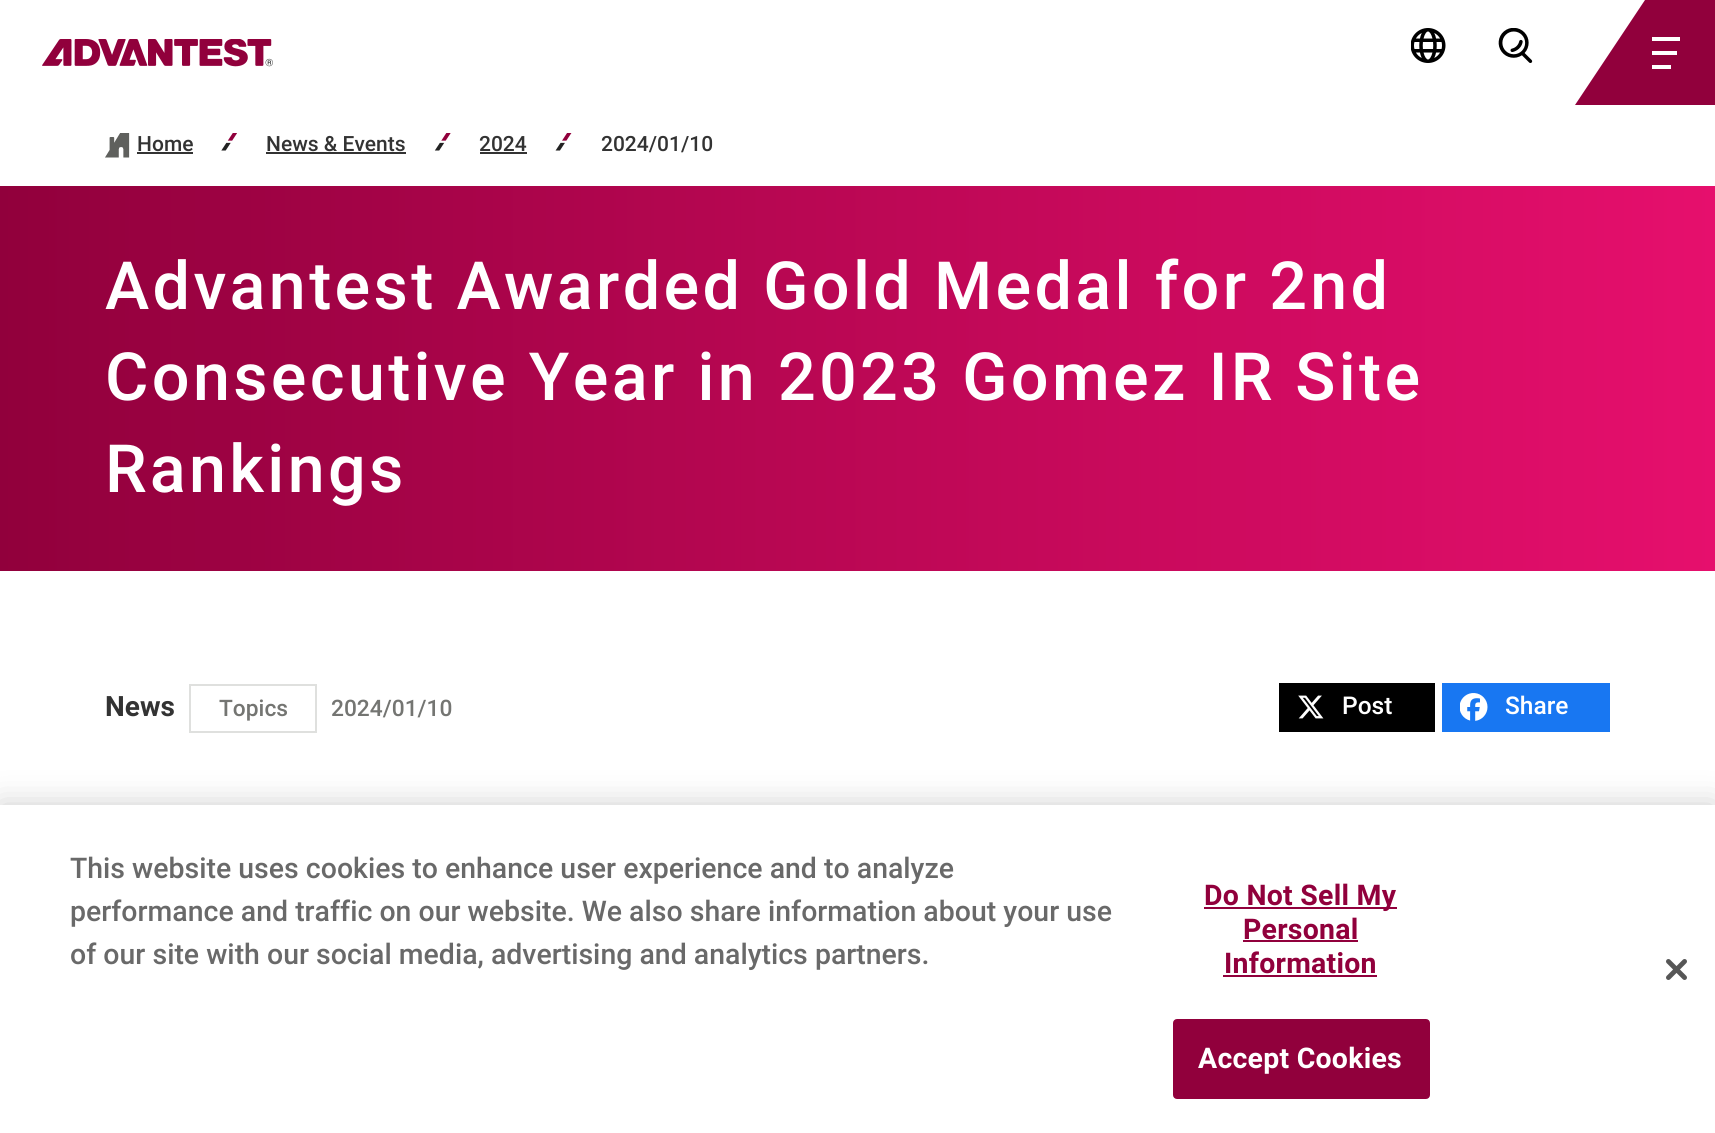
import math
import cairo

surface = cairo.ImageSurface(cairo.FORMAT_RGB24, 1715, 1133)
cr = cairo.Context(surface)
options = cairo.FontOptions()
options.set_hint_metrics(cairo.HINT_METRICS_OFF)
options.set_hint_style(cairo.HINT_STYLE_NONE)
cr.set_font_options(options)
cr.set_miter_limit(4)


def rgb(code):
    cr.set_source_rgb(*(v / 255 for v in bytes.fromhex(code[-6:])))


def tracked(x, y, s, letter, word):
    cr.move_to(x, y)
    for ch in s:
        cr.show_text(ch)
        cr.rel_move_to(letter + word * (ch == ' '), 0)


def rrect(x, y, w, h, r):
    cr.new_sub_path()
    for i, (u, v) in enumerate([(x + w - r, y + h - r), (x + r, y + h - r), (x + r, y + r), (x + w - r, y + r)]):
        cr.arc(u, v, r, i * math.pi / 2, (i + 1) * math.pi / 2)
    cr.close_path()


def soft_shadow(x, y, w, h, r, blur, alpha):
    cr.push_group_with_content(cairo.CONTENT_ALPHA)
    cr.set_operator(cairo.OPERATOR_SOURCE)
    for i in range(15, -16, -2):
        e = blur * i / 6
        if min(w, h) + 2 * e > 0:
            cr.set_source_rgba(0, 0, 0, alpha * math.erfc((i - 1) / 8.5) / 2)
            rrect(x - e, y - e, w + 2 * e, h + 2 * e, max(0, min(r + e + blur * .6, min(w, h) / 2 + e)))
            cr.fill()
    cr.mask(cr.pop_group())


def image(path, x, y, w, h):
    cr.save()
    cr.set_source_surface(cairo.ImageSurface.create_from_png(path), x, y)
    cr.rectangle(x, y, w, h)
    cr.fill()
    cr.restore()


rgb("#ffffff")
cr.paint()
image("img/1.png", 42, 39, 231, 28)
image("img/2.png", 1411, 28, 35, 35)
image("img/3.png", 1498, 28, 35, 35)
rgb("#91003c")
cr.new_path()
cr.move_to(1645, 0)
cr.line_to(1575, 105)
cr.line_to(1715, 105)
cr.line_to(1715, 0)
cr.close_path()
cr.fill()
for x, y, w, h, color in [
    (1652, 37, 28, 4, "#ffffff"),
    (1652, 51, 25, 4, "#ffffff"),
    (1652, 65, 19, 4, "#ffffff"),
]:
    rgb(color)
    cr.rectangle(x, y, w, h)
    cr.fill()
image("img/4.png", 105, 133, 25, 25)
rgb("#333333")
cr.rectangle(137, 152, 56, 2)
cr.fill()
image("img/5.png", 221, 133, 16, 18)
cr.rectangle(266, 152, 140, 2)
cr.fill()
image("img/6.png", 434, 133, 17, 18)
cr.rectangle(480, 152, 47, 2)
cr.fill()
image("img/7.png", 555, 133, 17, 18)
gradient = cairo.LinearGradient(0, 378, 1715, 378)
gradient.add_color_stop_rgba(0, 0.569, 0, 0.235, 1)
gradient.add_color_stop_rgba(1, 0.902, 0.059, 0.427, 1)
cr.set_source(gradient)
cr.rectangle(0, 186, 1715, 385)
cr.fill()
cr.rectangle(190, 685, 126, 47)
rgb("#dfe0de")
cr.stroke()
rgb("#000000")
cr.rectangle(1279, 683, 156, 49)
cr.fill()
image("img/8.png", 1298, 695, 26, 24)
rgb("#1877f2")
cr.rectangle(1442, 683, 168, 49)
cr.fill()
image("img/9.png", 1460, 693, 28, 28)
rgb("#000000")
soft_shadow(0, 805, 1715, 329, 0, 16, 0.2)
for x, y, w, h, color in [
    (0, 805, 1715, 328, "#ffffff"),
    (1204, 907, 193, 2, "#91003c"),
    (1243, 940, 115, 2, "#91003c"),
    (1223, 975, 154, 2, "#91003c"),
]:
    rgb(color)
    cr.rectangle(x, y, w, h)
    cr.fill()
rrect(1174, 1020, 255, 78, 3)
cr.fill_preserve()
cr.stroke()
image("img/10.png", 1666, 959, 21, 21)
cr.select_font_face("Roboto Medium")
cr.set_font_size(21)
rgb("#333333")
for x, y, s in [
    (137, 151, "Home"),
    (266, 151, "News & Events"),
    (479, 151, "2024"),
    (601, 151, "2024/01/10"),
]:
    cr.move_to(x, y)
    cr.show_text(s)
cr.set_font_size(66.5)
rgb("#ffffff")
for x, y, s in [
    (105, 309, "Advantest Awarded Gold Medal for 2nd"),
    (105, 400, "Consecutive Year in 2023 Gomez IR Site"),
    (105, 492, "Rankings"),
]:
    tracked(x, y, s, 3.3, 0)
cr.select_font_face("Roboto", cairo.FONT_SLANT_NORMAL, cairo.FONT_WEIGHT_BOLD)
cr.set_font_size(28)
rgb("#333333")
cr.move_to(105, 716)
cr.show_text("News")
cr.select_font_face("Roboto Medium")
cr.set_font_size(22.75)
rgb("#747572")
cr.move_to(219, 716)
cr.show_text("Topics")
cr.move_to(331, 716)
cr.show_text("2024/01/10")
cr.set_font_size(24.5)
rgb("#ffffff")
cr.move_to(1342, 714)
cr.show_text("Post")
cr.move_to(1505, 714)
cr.show_text("Share")
cr.set_font_size(28.45)
rgb("#696969")
for x, y, s in [
    (70, 878, "This website uses cookies to enhance user experience and to analyze"),
    (70, 921, "performance and traffic on our website. We also share information about your use"),
    (70, 964, "of our site with our social media, advertising and analytics partners."),
]:
    cr.move_to(x, y)
    cr.show_text(s)
cr.select_font_face("Roboto", cairo.FONT_SLANT_NORMAL, cairo.FONT_WEIGHT_BOLD)
rgb("#91003c")
for x, y, s in [
    (1204, 905, "Do Not Sell My"),
    (1243, 939, "Personal"),
    (1224, 973, "Information"),
]:
    tracked(x, y, s, 0.25, 0)
rgb("#ffffff")
tracked(1198, 1068, "Accept Cookies", 0.25, 0)
surface.write_to_png("page.png")
